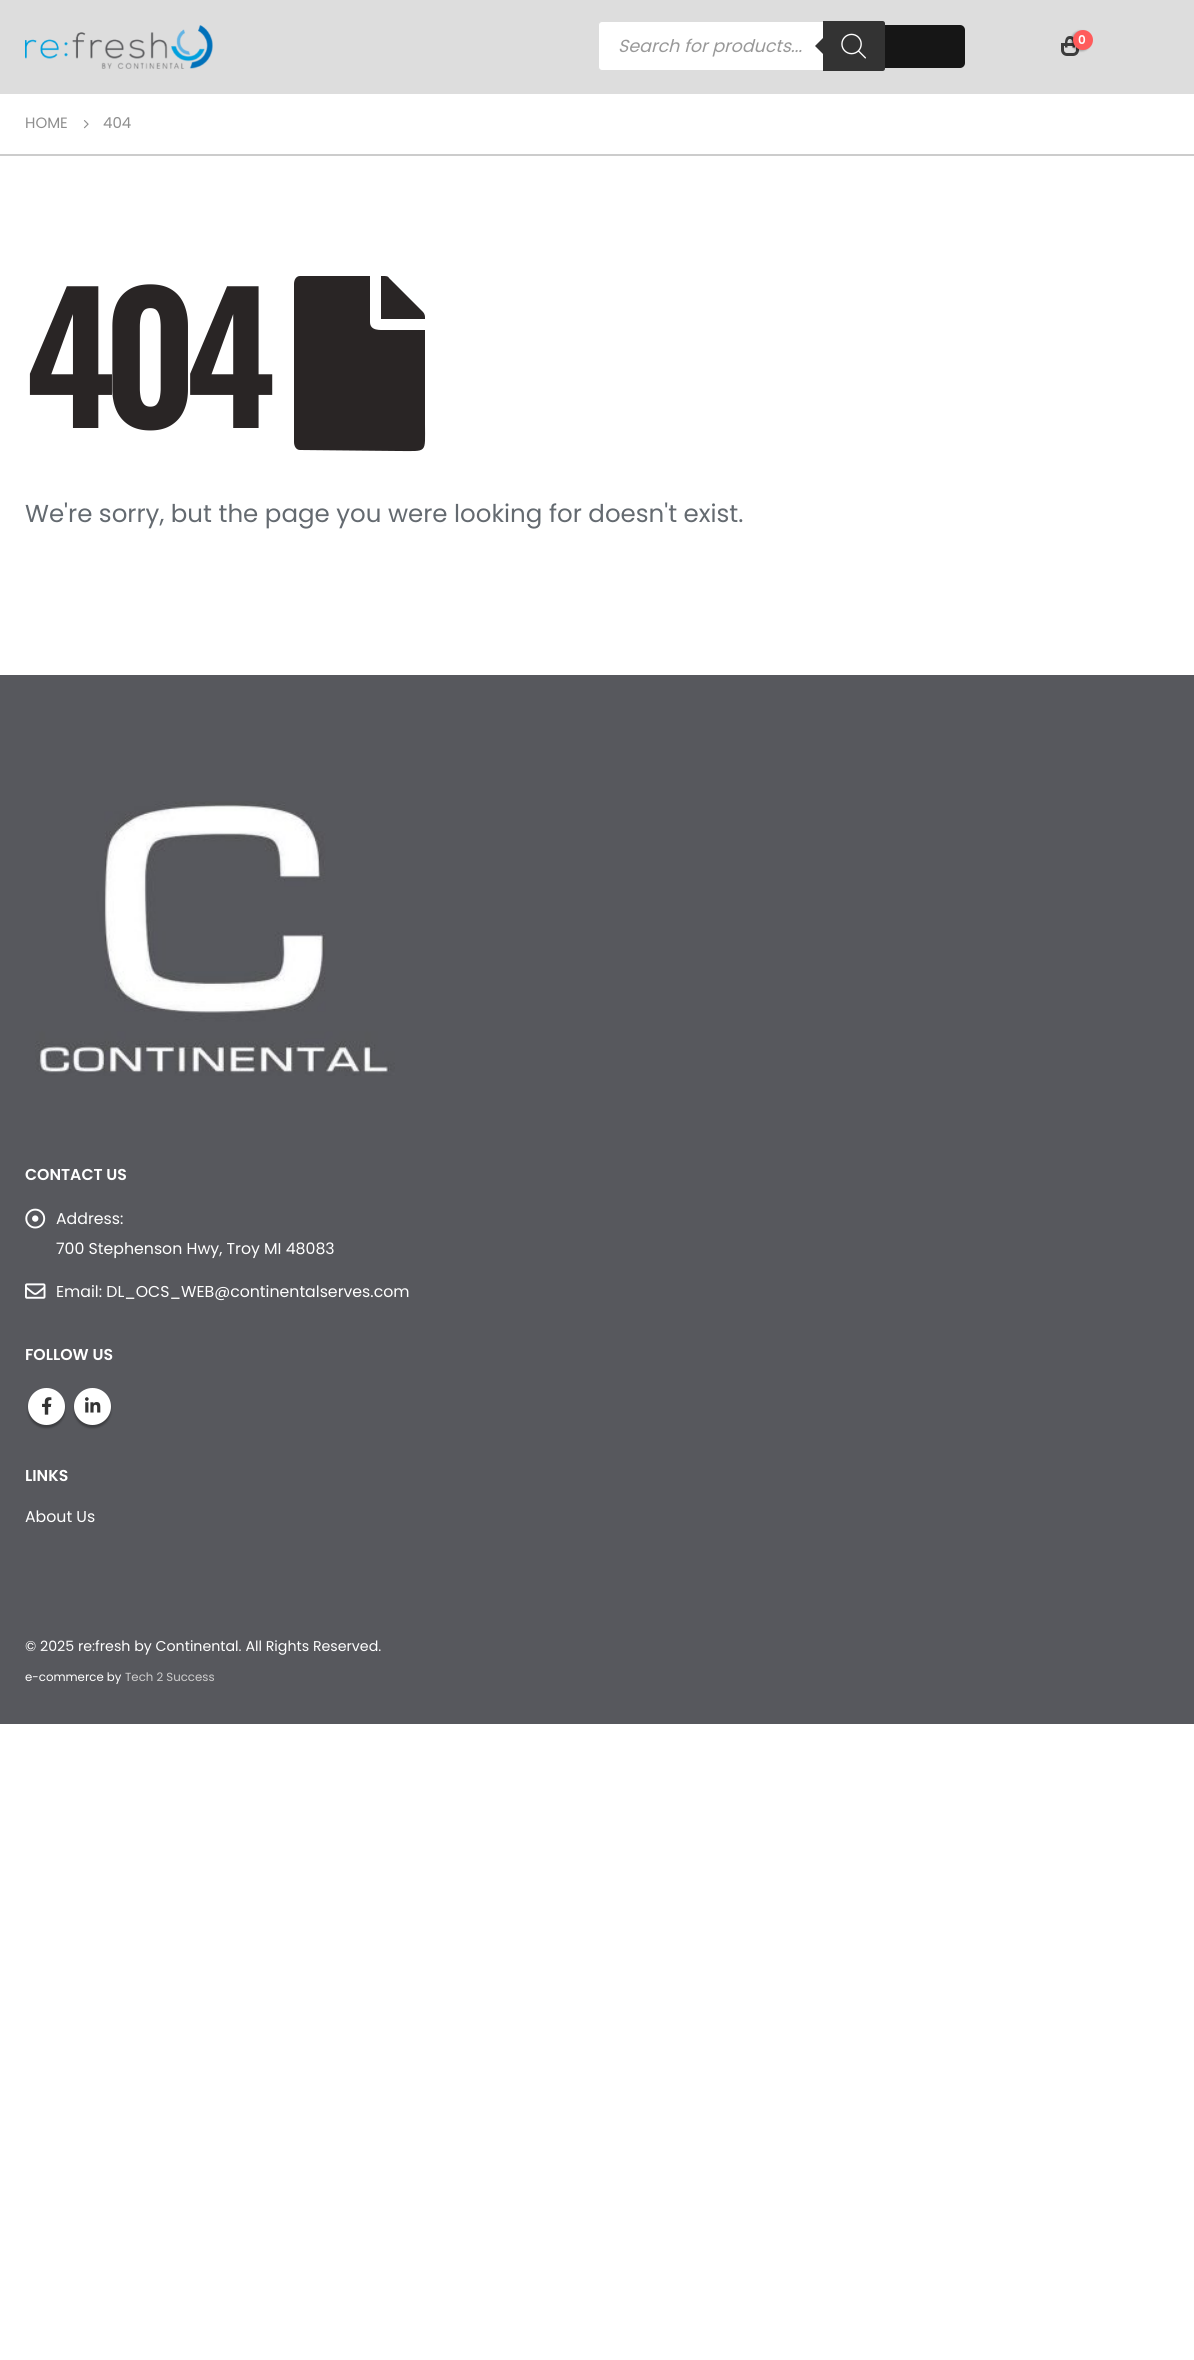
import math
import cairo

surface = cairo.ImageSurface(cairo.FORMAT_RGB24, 1194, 2360)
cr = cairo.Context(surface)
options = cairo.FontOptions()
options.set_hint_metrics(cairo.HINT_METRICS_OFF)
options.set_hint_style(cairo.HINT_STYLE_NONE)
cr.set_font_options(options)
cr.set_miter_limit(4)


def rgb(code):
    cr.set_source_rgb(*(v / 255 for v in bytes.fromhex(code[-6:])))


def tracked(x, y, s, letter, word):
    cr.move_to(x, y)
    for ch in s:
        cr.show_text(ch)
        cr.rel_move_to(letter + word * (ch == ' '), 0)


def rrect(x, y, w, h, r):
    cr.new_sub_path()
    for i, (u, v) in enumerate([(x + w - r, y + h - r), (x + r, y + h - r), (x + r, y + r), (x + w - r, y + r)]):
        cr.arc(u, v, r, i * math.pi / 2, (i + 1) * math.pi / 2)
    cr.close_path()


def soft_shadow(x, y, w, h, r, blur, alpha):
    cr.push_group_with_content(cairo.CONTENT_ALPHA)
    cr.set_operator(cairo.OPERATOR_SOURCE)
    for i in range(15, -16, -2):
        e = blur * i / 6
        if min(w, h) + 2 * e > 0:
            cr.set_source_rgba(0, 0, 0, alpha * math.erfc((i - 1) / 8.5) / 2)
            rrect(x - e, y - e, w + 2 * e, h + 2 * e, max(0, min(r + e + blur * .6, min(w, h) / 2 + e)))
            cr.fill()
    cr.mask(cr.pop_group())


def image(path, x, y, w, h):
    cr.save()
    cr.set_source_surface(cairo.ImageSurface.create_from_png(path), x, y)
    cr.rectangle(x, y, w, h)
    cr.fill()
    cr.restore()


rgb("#ffffff")
cr.paint()
rgb("#dddddd")
cr.rectangle(0, 0, 1194, 94)
cr.fill()
image("img/1.png", 25, 25, 188, 44)
rgb("#161616")
rrect(786, 25, 179, 43, 5)
cr.fill()
rgb("#ffffff")
rrect(598.5, 21.5, 286, 49, 3.5)
cr.fill_preserve()
rgb("#dddddd")
cr.set_line_width(1)
cr.stroke()
rgb("#333333")
cr.new_path()
cr.move_to(823, 21)
cr.line_to(882.5, 21)
cr.curve_to(884, 21, 885, 22, 885, 23.5)
cr.line_to(885, 68.5)
cr.curve_to(885, 70, 884, 71, 882.5, 71)
cr.line_to(823, 71)
cr.close_path()
cr.fill()
cr.new_path()
cr.move_to(825, 36)
cr.line_to(825, 56)
cr.line_to(815, 46)
cr.close_path()
cr.fill()
image("img/2.png", 841, 33, 25, 26)
cr.new_path()
cr.move_to(1062.5, 44.5)
cr.line_to(1077.5, 44.5)
cr.line_to(1077.5, 50)
cr.curve_to(1077.5, 52.5, 1075.5, 54.5, 1073, 54.5)
cr.line_to(1067, 54.5)
cr.curve_to(1064.5, 54.5, 1062.5, 52.5, 1062.5, 50)
cr.close_path()
rgb("#3c3c3c")
cr.set_line_width(3)
cr.stroke()
cr.set_fill_rule(cairo.FILL_RULE_EVEN_ODD)
cr.new_path()
cr.move_to(1070, 36)
cr.curve_to(1076, 36, 1075, 43.5, 1075, 47.5)
cr.line_to(1065, 47.5)
cr.curve_to(1065, 43.5, 1064, 36, 1070, 36)
cr.close_path()
cr.move_to(1070, 39)
cr.curve_to(1073.5, 39, 1072.5, 45, 1072.5, 47.5)
cr.line_to(1067.5, 47.5)
cr.curve_to(1067.5, 45, 1066.5, 39, 1070, 39)
cr.close_path()
cr.fill()
rgb("#000000")
soft_shadow(1071, 31, 20, 20, 10, 1, 0.3)
rgb("#ff5b5b")
cr.arc(1083, 40, 10, 0, 2 * math.pi)
cr.fill()
rgb("#cccccc")
cr.rectangle(0, 154, 1194, 2)
cr.fill()
image("img/3.png", 83, 120, 6, 9)
rgb("#292525")
cr.set_fill_rule(cairo.FILL_RULE_WINDING)
cr.new_path()
cr.move_to(370, 322)
cr.curve_to(370, 331, 380, 330, 386, 330)
cr.line_to(425, 330)
cr.line_to(425, 424)
cr.curve_to(425, 454, 428, 451, 398, 451)
cr.line_to(300, 450)
cr.curve_to(296, 450, 294, 446, 294, 442)
cr.line_to(294, 284)
cr.curve_to(294, 280, 296, 276, 300, 276)
cr.line_to(370, 276)
cr.close_path()
cr.move_to(425, 317)
cr.line_to(425, 319)
cr.line_to(381, 319)
cr.line_to(381, 276)
cr.line_to(383, 276)
cr.curve_to(386, 276, 388, 276, 389, 278)
cr.line_to(423, 312)
cr.curve_to(424, 313, 425, 315, 425, 317)
cr.close_path()
cr.fill()
rgb("#57585d")
cr.rectangle(0, 675, 1194, 1049)
cr.fill()
image("img/4.png", 35, 801, 360, 275)
image("img/5.png", 25, 1208, 21, 21)
image("img/6.png", 25, 1283, 21, 16)
rgb("#000000")
soft_shadow(28, 1390, 37, 38, 18.5, 1, 0.3)
rgb("#ffffff")
cr.arc(46.5, 1406.5, 18.5, 0, 2 * math.pi)
cr.fill()
image("img/7.png", 42, 1397, 10, 18)
rgb("#000000")
soft_shadow(74, 1390, 37, 38, 18.5, 1, 0.3)
rgb("#ffffff")
cr.arc(92.5, 1406.5, 18.5, 0, 2 * math.pi)
cr.fill()
image("img/8.png", 85, 1397, 16, 16)
cr.select_font_face("Poppins", cairo.FONT_SLANT_ITALIC)
cr.set_font_size(17.5)
rgb("#999999")
cr.move_to(618, 52)
cr.show_text("Search for products...")
cr.select_font_face("Poppins SemiBold")
cr.set_font_size(12)
rgb("#ffffff")
cr.move_to(1078, 44)
cr.show_text("0")
cr.select_font_face("Poppins")
cr.set_font_size(15)
rgb("#8e8e8e")
cr.move_to(25, 128)
cr.show_text("HOME")
cr.move_to(103, 128)
cr.show_text("404")
cr.select_font_face("Oswald SemiBold")
cr.set_font_size(175)
rgb("#292525")
tracked(25, 428, "404", -12.5, 0)
cr.select_font_face("Poppins")
cr.set_font_size(24.5)
rgb("#646a70")
cr.move_to(25, 522)
cr.show_text("We're sorry, but the page you were looking for doesn't exist.")
cr.select_font_face("Poppins SemiBold")
cr.set_font_size(15.75)
rgb("#ffffff")
cr.move_to(25, 1180)
cr.show_text("CONTACT US")
cr.select_font_face("Poppins")
for x, y, s in [
    (56, 1224, "Address:"),
    (56, 1254, "700 Stephenson Hwy, Troy MI 48083"),
    (56, 1297, "Email: DL_OCS_WEB@continentalserves.com"),
]:
    cr.move_to(x, y)
    cr.show_text(s)
cr.select_font_face("Poppins SemiBold")
cr.move_to(25, 1360)
cr.show_text("FOLLOW US")
cr.move_to(25, 1481)
cr.show_text("LINKS")
cr.select_font_face("Poppins")
cr.move_to(25, 1522)
cr.show_text("About Us")
cr.set_font_size(14.2)
cr.move_to(25, 1651)
cr.show_text("© 2025 re:fresh by Continental. All Rights Reserved.")
cr.set_font_size(11.75)
cr.move_to(25, 1681)
cr.show_text("e-commerce by")
rgb("#cecece")
cr.move_to(125, 1681)
cr.show_text("Tech 2 Success")
surface.write_to_png("page.png")
